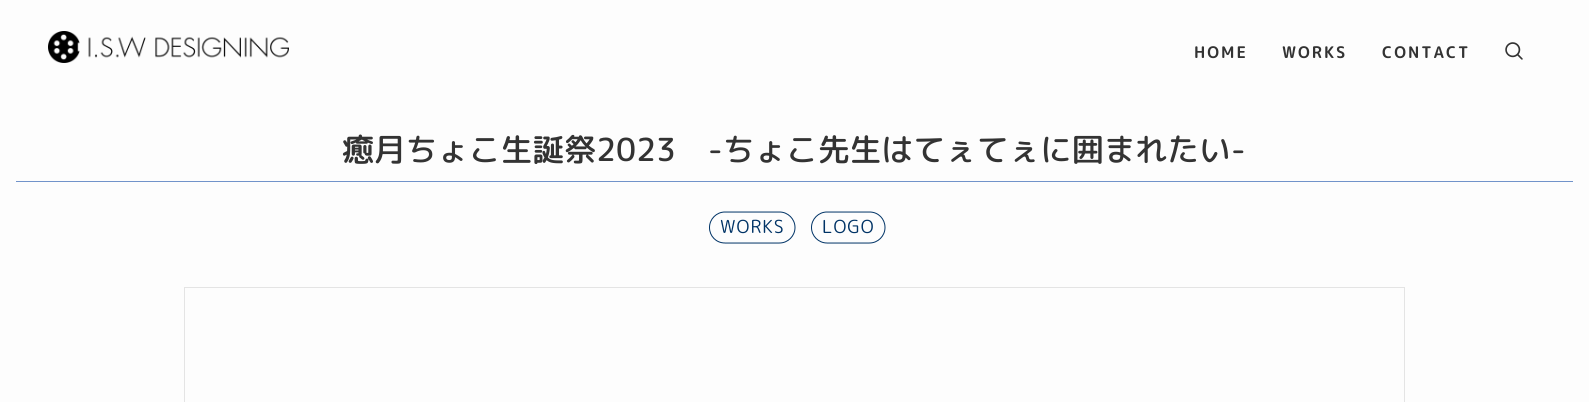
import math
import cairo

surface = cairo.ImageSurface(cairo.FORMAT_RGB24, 1589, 402)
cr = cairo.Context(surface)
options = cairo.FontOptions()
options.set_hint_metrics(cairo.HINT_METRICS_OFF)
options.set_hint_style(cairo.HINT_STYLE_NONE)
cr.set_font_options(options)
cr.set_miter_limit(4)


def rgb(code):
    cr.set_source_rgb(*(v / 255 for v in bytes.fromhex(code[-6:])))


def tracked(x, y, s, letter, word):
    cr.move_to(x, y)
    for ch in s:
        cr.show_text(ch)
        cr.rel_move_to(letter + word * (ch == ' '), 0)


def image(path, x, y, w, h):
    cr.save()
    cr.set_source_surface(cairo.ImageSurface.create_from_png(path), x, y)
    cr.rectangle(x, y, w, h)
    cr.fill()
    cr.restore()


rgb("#fdfdfd")
cr.paint()
image("img/1.png", 48, 31, 241, 32)
image("img/2.png", 1505, 42, 18, 18)
rgb("#7193ca")
cr.rectangle(16, 181, 1557, 1)
cr.fill()
cr.new_path()
cr.move_to(725, 212)
cr.line_to(779.5, 212)
cr.curve_to(788, 212, 795, 219, 795, 227.5)
cr.curve_to(795, 236, 788, 243, 779.5, 243)
cr.line_to(725, 243)
cr.curve_to(716, 243, 709.5, 236, 709.5, 227.5)
cr.curve_to(709.5, 219, 716.5, 212, 725, 212)
cr.close_path()
rgb("#003366")
cr.set_line_width(1)
cr.stroke()
cr.new_path()
cr.move_to(827, 212)
cr.line_to(869.5, 212)
cr.curve_to(878.5, 212, 885, 219, 885, 227.5)
cr.curve_to(885, 236, 878, 243, 869.5, 243)
cr.line_to(827, 243)
cr.curve_to(818.5, 243, 811.5, 236, 811.5, 227.5)
cr.curve_to(811.5, 219, 818.5, 212, 827, 212)
cr.close_path()
cr.stroke()
cr.rectangle(184.5, 287.5, 1220, 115)
rgb("#e4e4e4")
cr.stroke()
cr.select_font_face("Rounded Mplus 1c Bold", cairo.FONT_SLANT_NORMAL, cairo.FONT_WEIGHT_BOLD)
cr.set_font_size(16)
rgb("#333333")
for x, y, s in [
    (1194, 58, "HOME"),
    (1282, 58, "WORKS"),
    (1382, 58, "CONTACT"),
]:
    tracked(x, y, s, 2, 0)
cr.select_font_face("Rounded Mplus 1c Medium")
cr.set_font_size(31.75)
cr.move_to(342, 161)
cr.show_text("癒月ちょこ生誕祭2023　-ちょこ先生はてぇてぇに囲まれたい-")
cr.select_font_face("Rounded Mplus 1c")
cr.set_font_size(18)
rgb("#003366")
tracked(720, 233, "WORKS", 1, 0)
tracked(822, 233, "LOGO", 1, 0)
surface.write_to_png("page.png")
